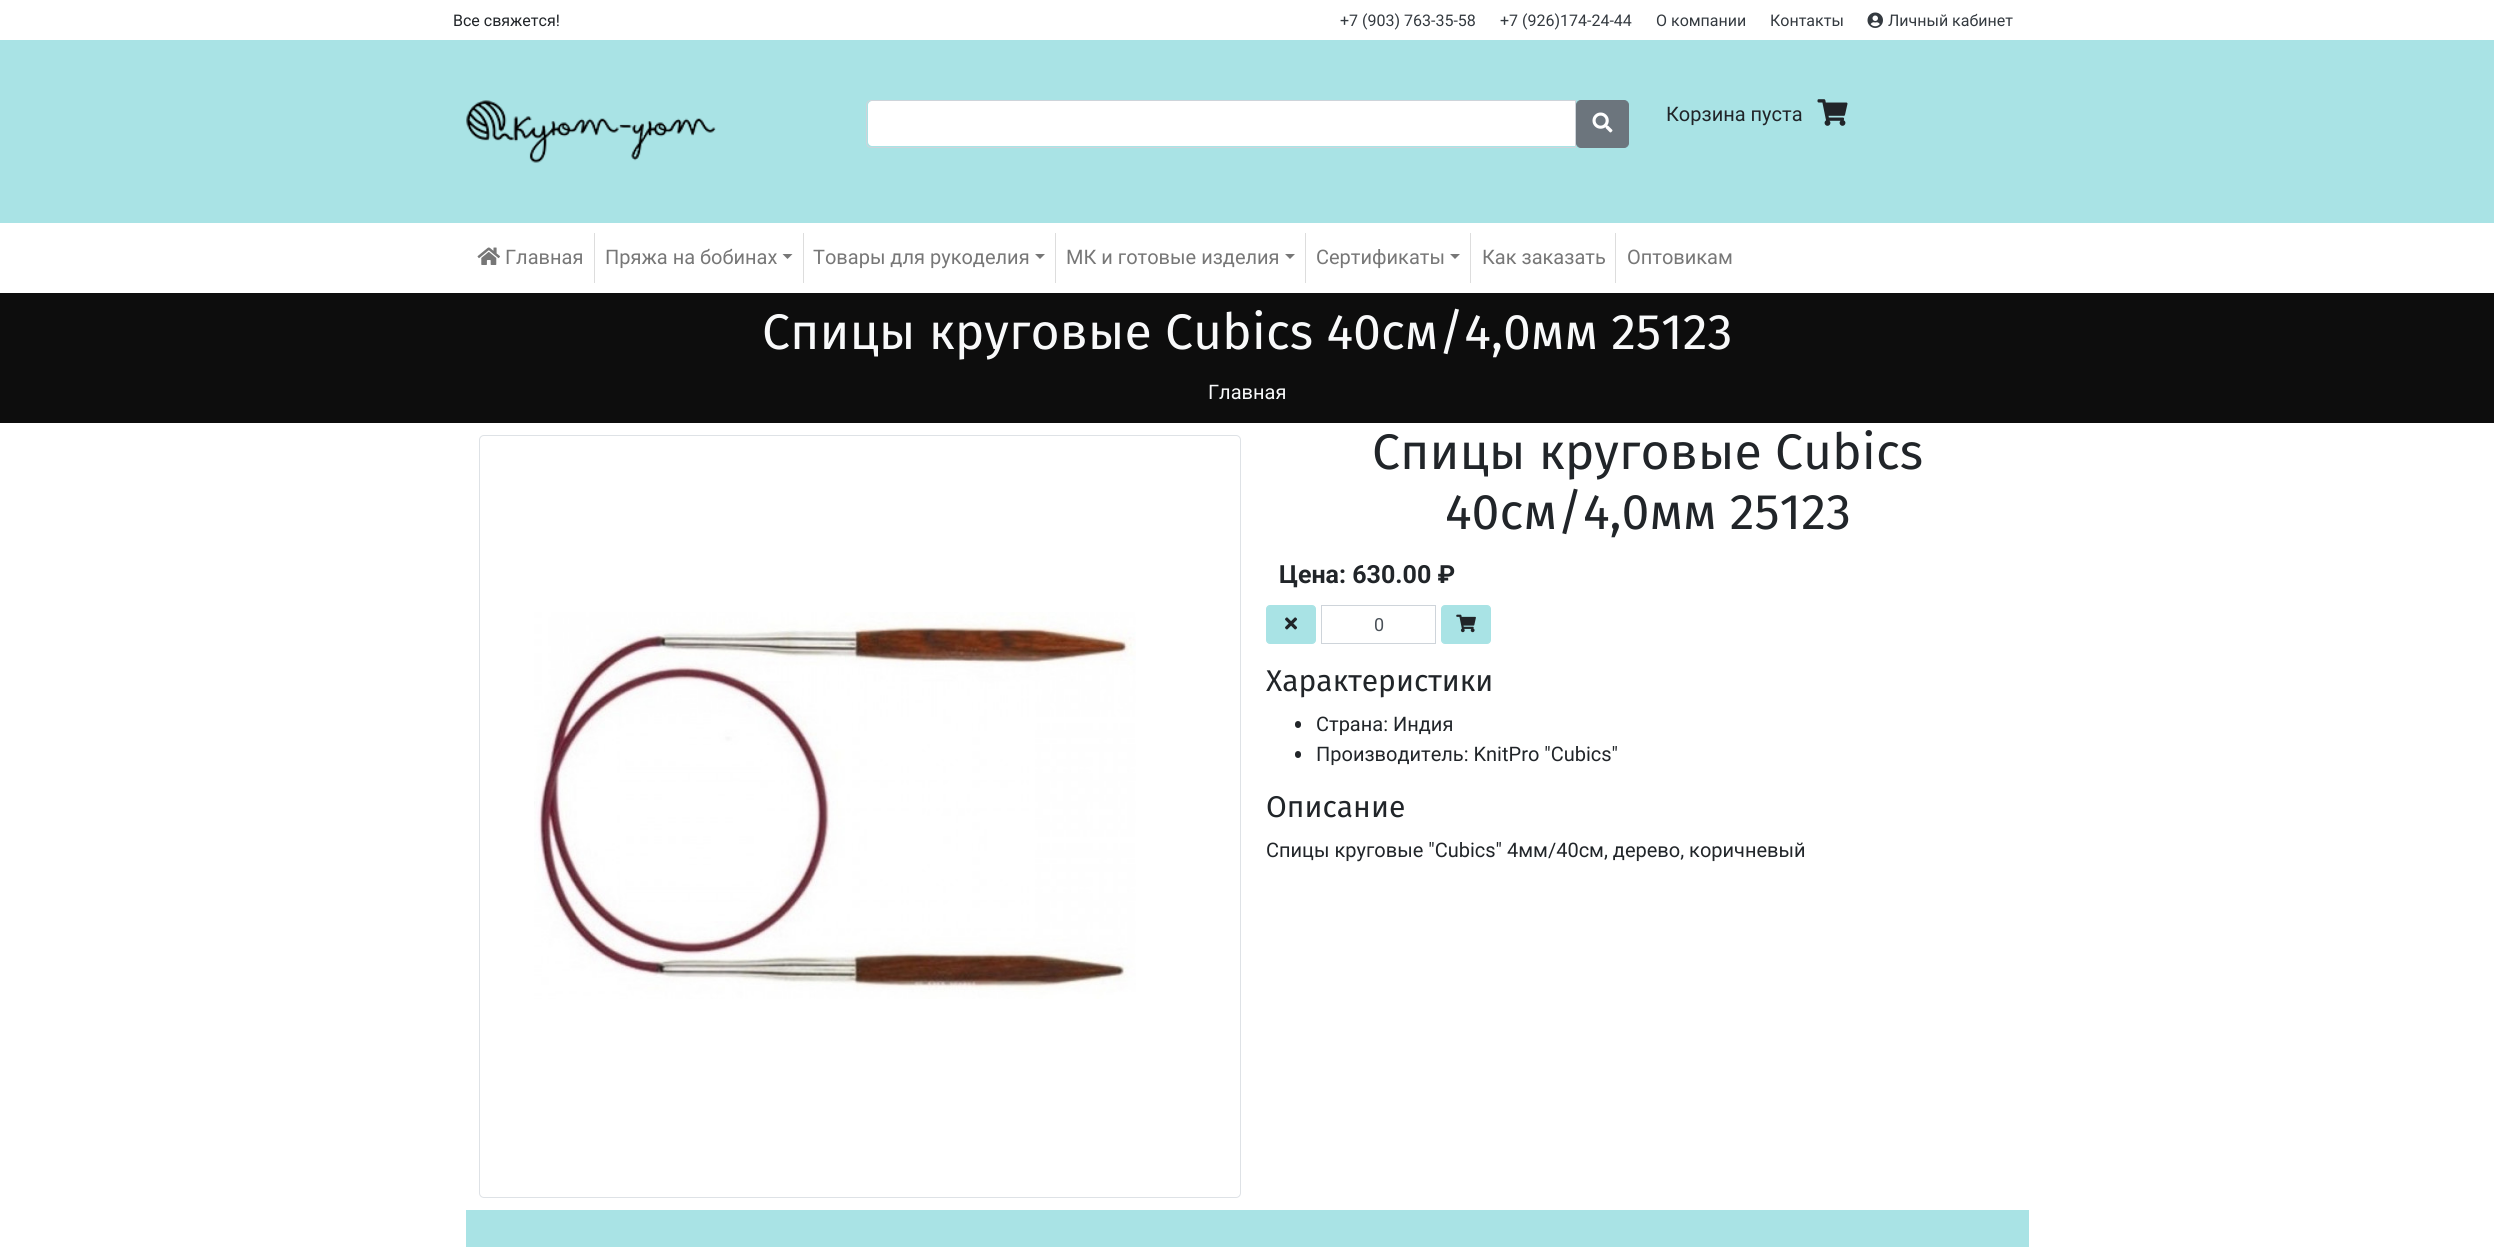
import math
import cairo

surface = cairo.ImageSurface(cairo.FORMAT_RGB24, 2494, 1247)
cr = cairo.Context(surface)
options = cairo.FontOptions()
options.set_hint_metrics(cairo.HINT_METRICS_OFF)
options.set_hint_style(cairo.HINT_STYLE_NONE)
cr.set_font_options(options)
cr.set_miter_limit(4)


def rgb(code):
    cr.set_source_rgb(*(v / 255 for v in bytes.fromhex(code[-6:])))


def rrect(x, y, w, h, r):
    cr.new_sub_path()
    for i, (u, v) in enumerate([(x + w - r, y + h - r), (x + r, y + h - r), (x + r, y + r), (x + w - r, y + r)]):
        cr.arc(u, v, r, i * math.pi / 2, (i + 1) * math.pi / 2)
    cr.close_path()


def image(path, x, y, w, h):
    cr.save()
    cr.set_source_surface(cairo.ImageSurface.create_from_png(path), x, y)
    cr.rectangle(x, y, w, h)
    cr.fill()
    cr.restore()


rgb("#ffffff")
cr.paint()
image("img/1.png", 1867, 12, 16, 16)
rgb("#a9e3e5")
cr.rectangle(0, 40, 2494, 183)
cr.fill()
image("img/2.png", 466, 100, 250, 63)
rgb("#ffffff")
cr.new_path()
cr.move_to(872, 101)
cr.line_to(1575, 101)
cr.line_to(1575, 146)
cr.line_to(872, 146)
cr.curve_to(870, 146, 868, 144, 868, 142)
cr.line_to(868, 105)
cr.curve_to(868, 103, 870, 101, 872, 101)
cr.close_path()
cr.fill()
cr.new_path()
cr.move_to(871, 100.5)
cr.line_to(1575.5, 100.5)
cr.line_to(1575.5, 147.5)
cr.line_to(871, 147.5)
cr.curve_to(868.5, 147.5, 866.5, 145.5, 866.5, 143)
cr.line_to(866.5, 105)
cr.curve_to(866.5, 102.5, 868.5, 100.5, 871, 100.5)
cr.close_path()
rgb("#ced4da")
cr.set_line_width(1)
cr.stroke()
rgb("#6c757d")
rrect(1576.5, 100.5, 52, 47, 4.5)
cr.fill_preserve()
cr.stroke()
image("img/3.png", 1592, 112, 21, 21)
image("img/4.png", 1817, 99, 31, 27)
image("img/5.png", 477, 247, 23, 18)
rgb("#dddddd")
cr.rectangle(594, 233, 1, 50)
cr.fill()
rgb("#777777")
cr.new_path()
cr.move_to(782.5, 254)
cr.line_to(792.5, 254)
cr.line_to(787.5, 259)
cr.close_path()
cr.fill()
rgb("#dddddd")
cr.rectangle(803, 233, 1, 50)
cr.fill()
rgb("#777777")
cr.new_path()
cr.move_to(1035, 254)
cr.line_to(1045, 254)
cr.line_to(1040, 259)
cr.close_path()
cr.fill()
rgb("#dddddd")
cr.rectangle(1055, 233, 1, 50)
cr.fill()
rgb("#777777")
cr.new_path()
cr.move_to(1285, 254)
cr.line_to(1295, 254)
cr.line_to(1290, 259)
cr.close_path()
cr.fill()
rgb("#dddddd")
cr.rectangle(1305, 233, 1, 50)
cr.fill()
rgb("#777777")
cr.new_path()
cr.move_to(1450, 254)
cr.line_to(1460, 254)
cr.line_to(1455, 259)
cr.close_path()
cr.fill()
for x, y, w, h, color in [
    (1470, 233, 1, 50, "#dddddd"),
    (1615, 233, 1, 50, "#dddddd"),
    (0, 293, 2494, 130, "#0d0d0d"),
]:
    rgb(color)
    cr.rectangle(x, y, w, h)
    cr.fill()
rrect(479.5, 435.5, 761, 762, 4.5)
rgb("#dee2e6")
cr.stroke()
image("img/6.png", 534, 612, 602, 387)
rgb("#a9e3e5")
rrect(1266.5, 605.5, 49, 38, 3.5)
cr.fill_preserve()
cr.stroke()
image("img/7.png", 1285, 617, 13, 13)
cr.rectangle(1321.5, 605.5, 114, 38)
rgb("#ced4da")
cr.stroke()
rgb("#a9e3e5")
rrect(1441.5, 605.5, 49, 38, 3.5)
cr.fill_preserve()
cr.stroke()
image("img/8.png", 1456, 614, 20, 19)
rgb("#212529")
rrect(1295, 721, 6, 7, 3)
cr.fill()
rrect(1295, 751, 6, 7, 3)
cr.fill()
rgb("#a9e3e5")
cr.rectangle(466, 1210, 1563, 37)
cr.fill()
cr.select_font_face("Roboto")
cr.set_font_size(16)
rgb("#212529")
cr.move_to(453, 26)
cr.show_text("Все свяжется!")
rgb("#343a40")
for x, y, s in [
    (1340, 26, "+7 (903) 763-35-58"),
    (1500, 26, "+7 (926)174-24-44"),
    (1656, 26, "О компании"),
    (1770, 26, "Контакты"),
    (1888, 26, "Личный кабинет"),
]:
    cr.move_to(x, y)
    cr.show_text(s)
cr.set_font_size(20)
rgb("#212529")
cr.move_to(1666, 121)
cr.show_text("Корзина пуста")
rgb("#777777")
for x, y, s in [
    (505, 264, "Главная"),
    (605, 264, "Пряжа на бобинах"),
    (813, 264, "Товары для рукоделия"),
    (1066, 264, "МК и готовые изделия"),
    (1316, 264, "Cертификаты"),
    (1482, 264, "Как заказать"),
    (1627, 264, "Оптовикам"),
]:
    cr.move_to(x, y)
    cr.show_text(s)
cr.select_font_face("Fira Sans")
cr.set_font_size(50)
rgb("#f8f9fa")
cr.move_to(762, 349)
cr.show_text("Спицы круговые Cubics 40см/4,0мм 25123")
cr.select_font_face("Roboto")
cr.set_font_size(20)
cr.move_to(1208, 399)
cr.show_text("Главная")
cr.select_font_face("Fira Sans")
cr.set_font_size(50)
rgb("#212529")
cr.move_to(1372, 469)
cr.show_text("Спицы круговые Cubics")
cr.move_to(1445, 529)
cr.show_text("40см/4,0мм 25123")
cr.select_font_face("Roboto", cairo.FONT_SLANT_NORMAL, cairo.FONT_WEIGHT_BOLD)
cr.set_font_size(25)
cr.move_to(1279, 583)
cr.show_text("Цена: 630.00 ₽")
cr.select_font_face("Roboto")
cr.set_font_size(18)
rgb("#495057")
cr.move_to(1374, 631)
cr.show_text("0")
cr.select_font_face("Fira Sans")
cr.set_font_size(30)
rgb("#212529")
cr.move_to(1266, 691)
cr.show_text("Характеристики")
cr.select_font_face("Roboto")
cr.set_font_size(20)
cr.move_to(1316, 731)
cr.show_text("Страна: Индия")
cr.move_to(1316, 761)
cr.show_text("Производитель: KnitPro \"Cubics\"")
cr.select_font_face("Fira Sans")
cr.set_font_size(30)
cr.move_to(1266, 817)
cr.show_text("Описание")
cr.select_font_face("Roboto")
cr.set_font_size(20)
cr.move_to(1266, 857)
cr.show_text("Спицы круговые \"Cubics\" 4мм/40см, дерево, коричневый")
surface.write_to_png("page.png")
